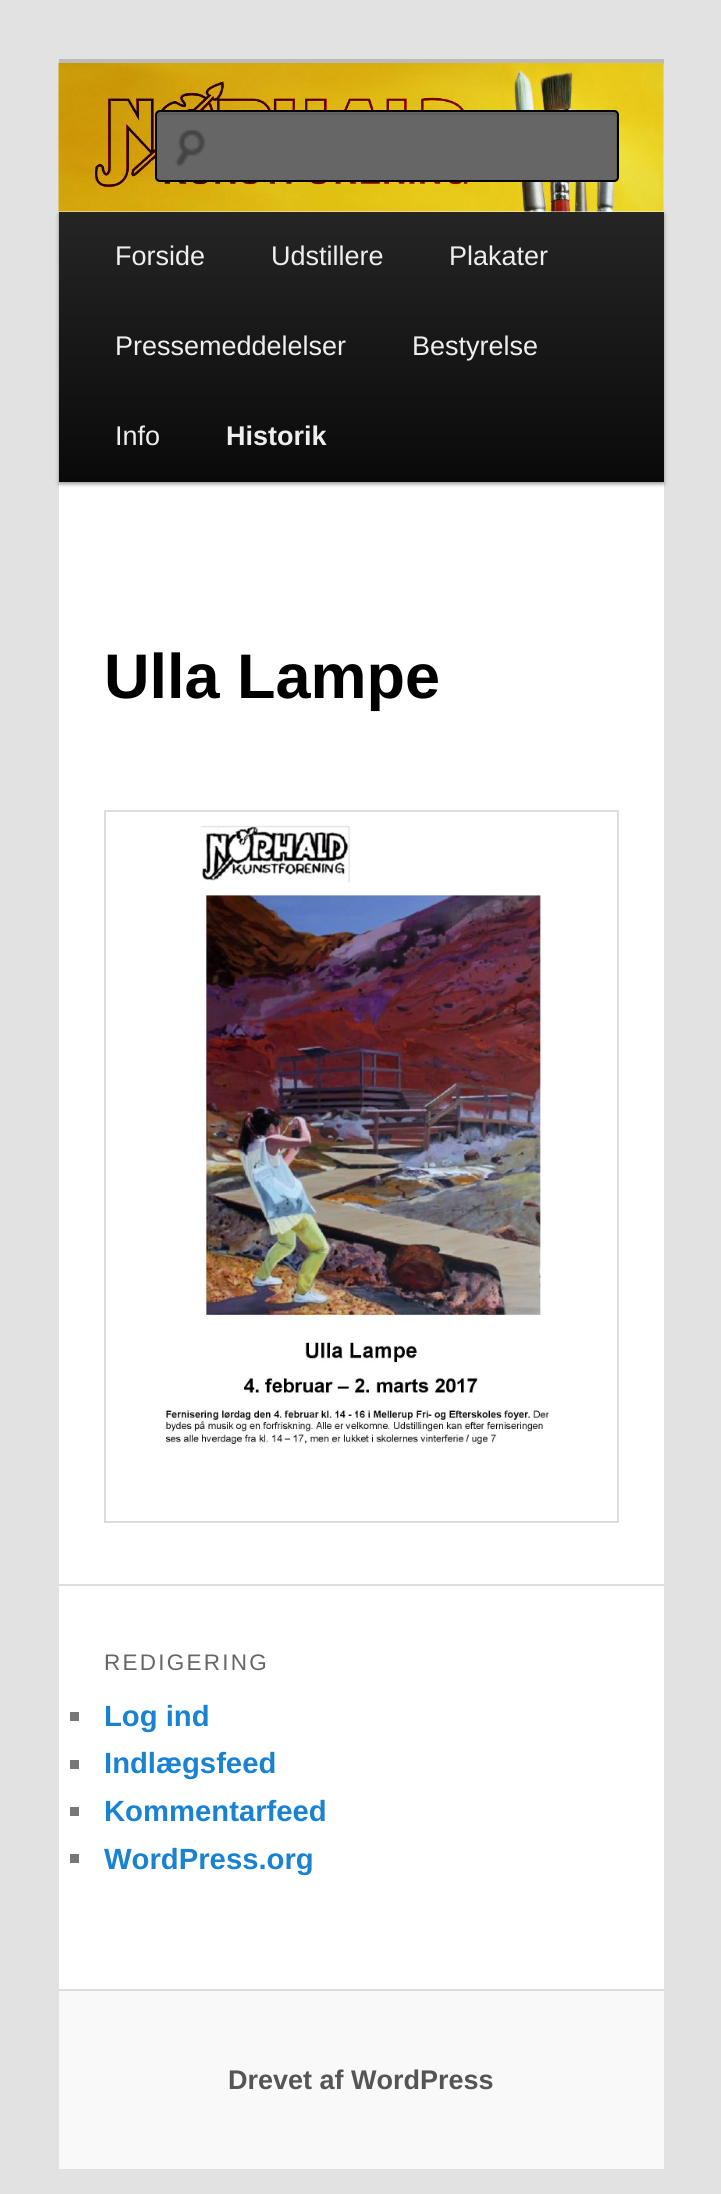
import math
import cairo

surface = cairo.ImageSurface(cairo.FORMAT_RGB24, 721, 2194)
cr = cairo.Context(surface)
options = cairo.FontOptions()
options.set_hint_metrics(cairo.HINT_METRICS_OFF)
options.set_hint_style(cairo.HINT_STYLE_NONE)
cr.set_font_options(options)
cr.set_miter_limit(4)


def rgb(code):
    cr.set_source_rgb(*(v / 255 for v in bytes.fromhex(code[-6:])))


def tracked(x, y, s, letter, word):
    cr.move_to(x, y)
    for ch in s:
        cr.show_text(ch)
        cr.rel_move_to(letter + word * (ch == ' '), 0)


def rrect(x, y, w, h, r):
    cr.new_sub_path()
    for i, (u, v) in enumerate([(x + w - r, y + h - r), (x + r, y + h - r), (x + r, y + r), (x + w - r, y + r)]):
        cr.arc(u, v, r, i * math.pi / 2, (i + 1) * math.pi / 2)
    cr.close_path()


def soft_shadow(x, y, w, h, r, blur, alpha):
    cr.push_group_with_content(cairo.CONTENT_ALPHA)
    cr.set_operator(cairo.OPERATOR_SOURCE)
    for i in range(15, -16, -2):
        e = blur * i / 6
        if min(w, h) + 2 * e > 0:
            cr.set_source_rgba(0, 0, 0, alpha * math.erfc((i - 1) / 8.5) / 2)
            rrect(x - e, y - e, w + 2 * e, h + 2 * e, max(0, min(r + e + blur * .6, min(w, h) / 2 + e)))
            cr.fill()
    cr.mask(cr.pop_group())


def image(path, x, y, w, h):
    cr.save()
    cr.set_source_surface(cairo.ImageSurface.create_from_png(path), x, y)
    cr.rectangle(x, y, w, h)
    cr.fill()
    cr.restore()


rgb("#e2e2e2")
cr.paint()
rgb("#ffffff")
cr.rectangle(59, 64, 605, 1925)
cr.fill()
rgb("#bbbbbb")
cr.rectangle(59, 59, 605, 5)
cr.fill()
rgb("#000000")
soft_shadow(59, 214, 605, 270, 0, 2, 0.4)
image("img/1.png", 58, 63, 606, 149)
rgb("#666666")
rrect(155, 110, 464, 72, 5)
cr.fill()
image("img/2.png", 175, 129, 31, 38)
rgb("#5c5c5c")
cr.new_path()
cr.move_to(160, 115)
cr.line_to(614, 115)
cr.curve_to(615, 115, 616, 116, 616, 117)
cr.line_to(616, 180)
cr.curve_to(617, 179, 617, 179, 617, 178)
cr.line_to(617, 115)
cr.curve_to(617, 114, 616, 113, 615, 113)
cr.line_to(160, 113)
cr.curve_to(159, 113, 158, 114, 158, 115)
cr.line_to(158, 117)
cr.curve_to(158, 116, 159, 115, 160, 115)
cr.close_path()
cr.fill()
rrect(156, 111, 462, 70, 4)
rgb("#000000")
cr.stroke()
gradient = cairo.LinearGradient(361, 211, 361, 482)
gradient.add_color_stop_rgba(0, 0.145, 0.145, 0.145, 1)
gradient.add_color_stop_rgba(1, 0.039, 0.039, 0.039, 1)
cr.set_source(gradient)
cr.rectangle(59, 212, 605, 270)
cr.fill()
cr.rectangle(105, 811, 513, 711)
rgb("#dddddd")
cr.stroke()
image("img/3.png", 166, 825, 384, 619)
for x, y, w, h, color in [
    (59, 1584, 605, 2, "#dddddd"),
    (70, 1712, 9, 9, "#777777"),
    (70, 1760, 9, 9, "#777777"),
    (70, 1807, 9, 9, "#777777"),
    (70, 1854, 9, 9, "#777777"),
    (59, 1991, 605, 178, "#f9f9f9"),
    (59, 1989, 605, 2, "#dddddd"),
]:
    rgb(color)
    cr.rectangle(x, y, w, h)
    cr.fill()
cr.select_font_face("Liberation Sans")
cr.set_font_size(27)
rgb("#eeeeee")
for x, y, s in [
    (115, 265, "Forside"),
    (271, 265, "Udstillere"),
    (449, 265, "Plakater"),
    (115, 355, "Pressemeddelelser"),
    (412, 355, "Bestyrelse"),
    (115, 445, "Info"),
]:
    cr.move_to(x, y)
    cr.show_text(s)
cr.select_font_face("Liberation Sans", cairo.FONT_SLANT_NORMAL, cairo.FONT_WEIGHT_BOLD)
cr.move_to(226, 445)
cr.show_text("Historik")
cr.set_font_size(63)
rgb("#000000")
cr.move_to(104, 698)
cr.show_text("Ulla Lampe")
cr.select_font_face("Liberation Sans")
cr.set_font_size(22.5)
rgb("#666666")
tracked(104, 1670, "REDIGERING", 2.25, 0)
cr.select_font_face("Liberation Sans", cairo.FONT_SLANT_NORMAL, cairo.FONT_WEIGHT_BOLD)
cr.set_font_size(29.25)
rgb("#1982d1")
for x, y, s in [
    (104, 1726, "Log ind"),
    (104, 1773, "Indlægsfeed"),
    (104, 1821, "Kommentarfeed"),
    (104, 1869, "WordPress.org"),
]:
    cr.move_to(x, y)
    cr.show_text(s)
cr.set_font_size(27)
rgb("#555555")
cr.move_to(228, 2089)
cr.show_text("Drevet af WordPress")
surface.write_to_png("page.png")
